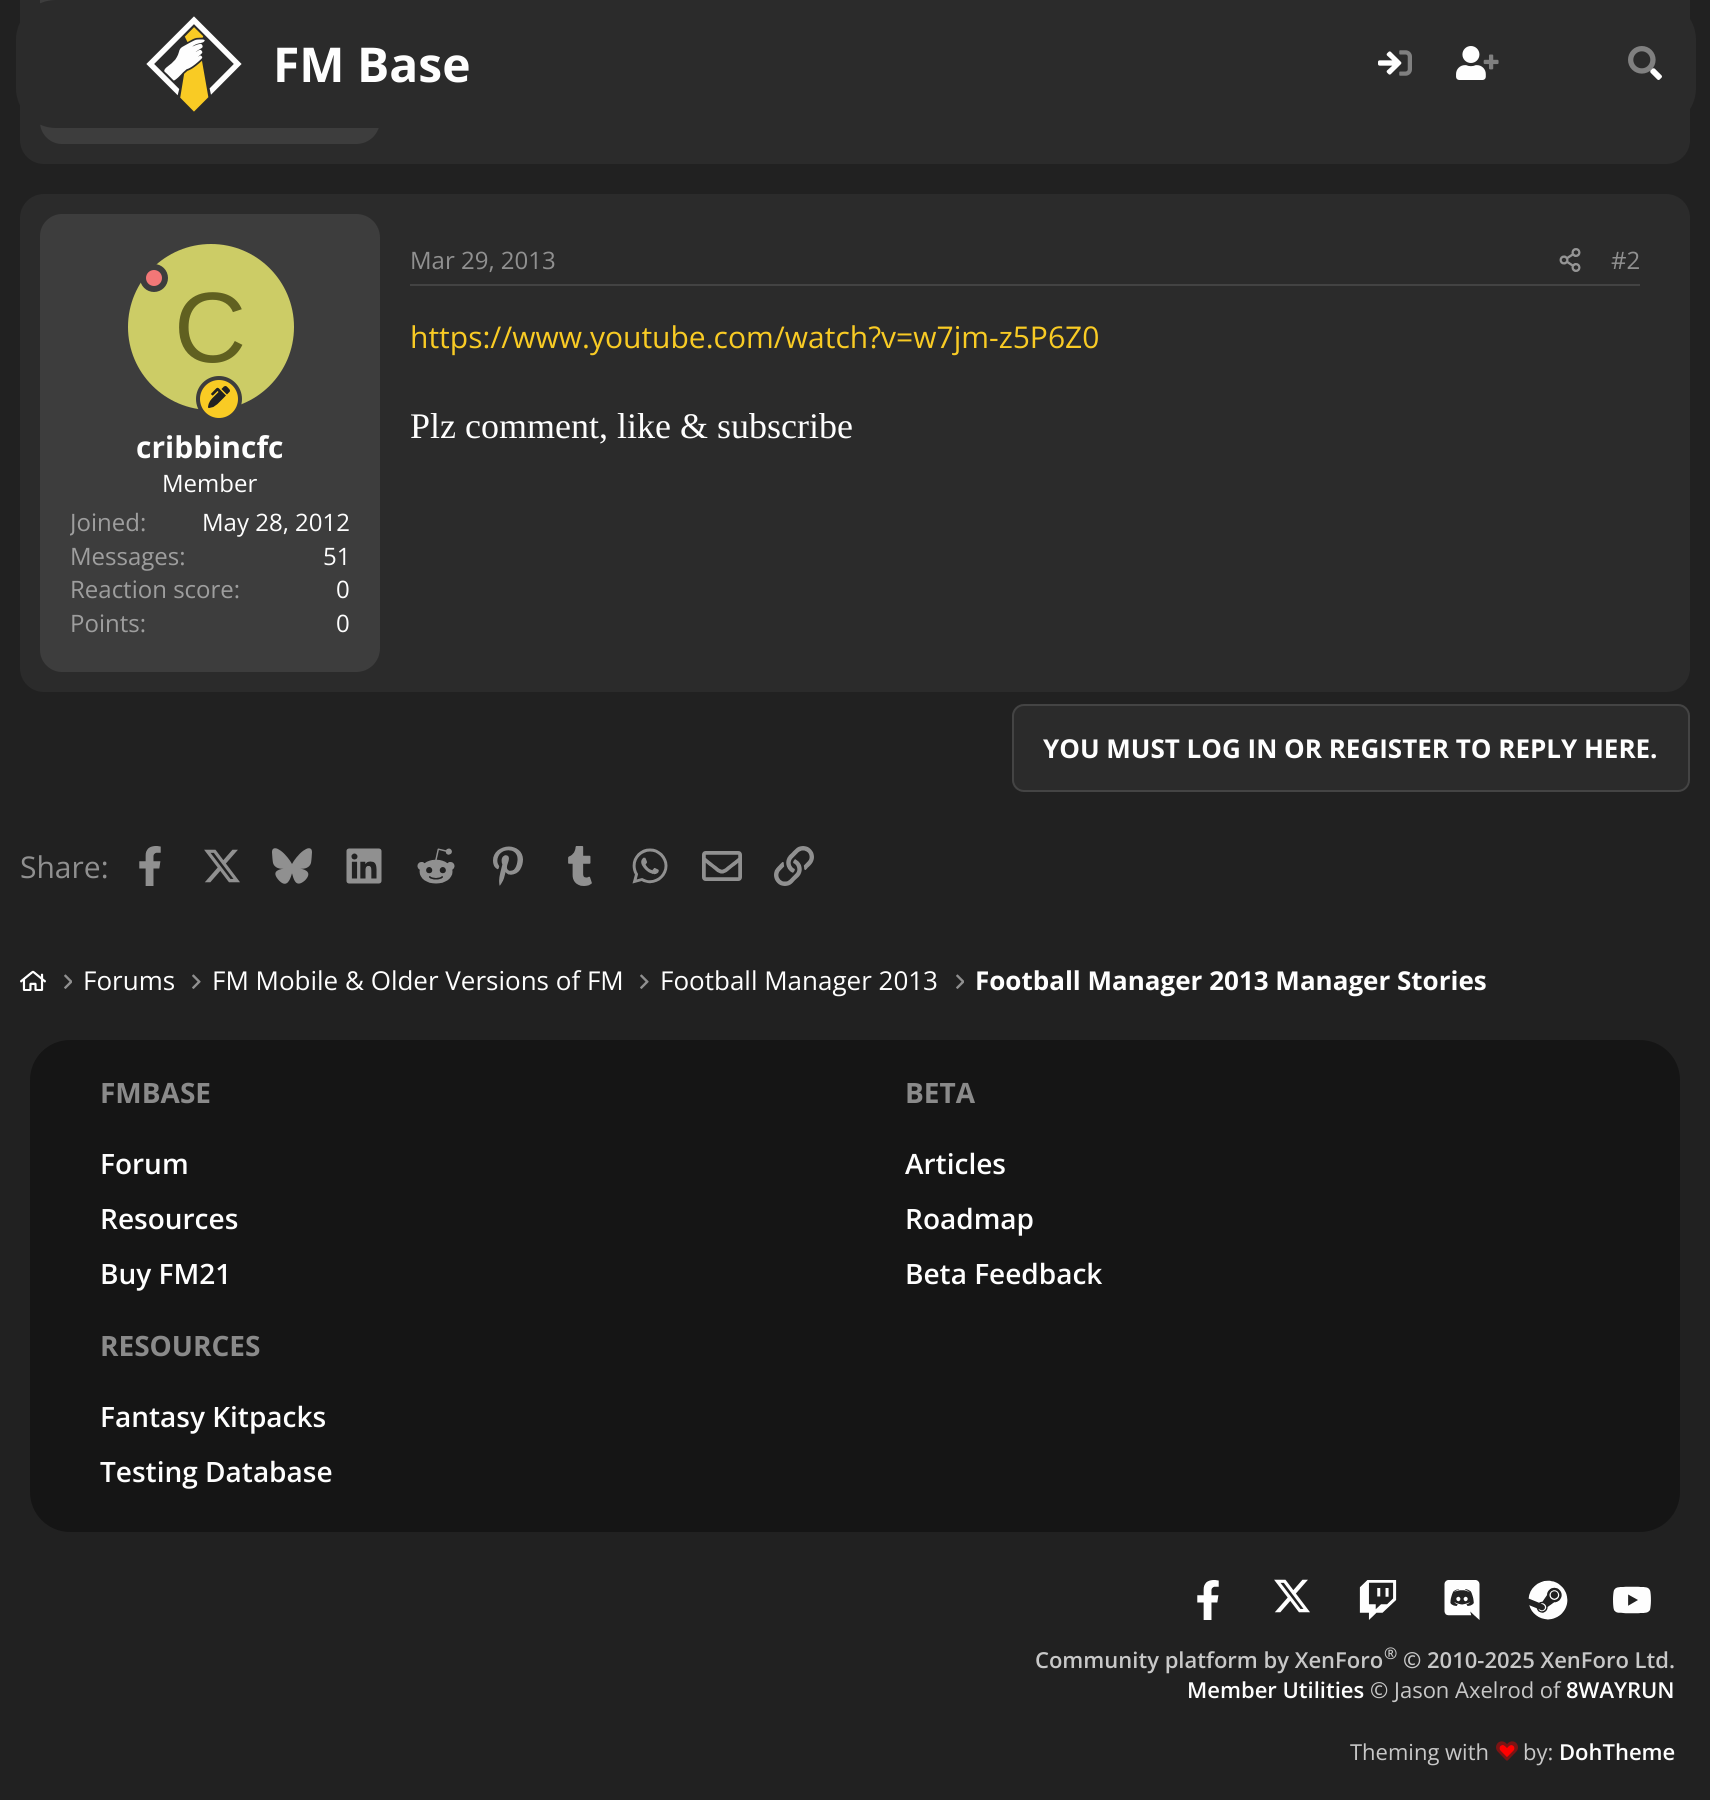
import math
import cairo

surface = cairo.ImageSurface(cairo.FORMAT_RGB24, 1710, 1800)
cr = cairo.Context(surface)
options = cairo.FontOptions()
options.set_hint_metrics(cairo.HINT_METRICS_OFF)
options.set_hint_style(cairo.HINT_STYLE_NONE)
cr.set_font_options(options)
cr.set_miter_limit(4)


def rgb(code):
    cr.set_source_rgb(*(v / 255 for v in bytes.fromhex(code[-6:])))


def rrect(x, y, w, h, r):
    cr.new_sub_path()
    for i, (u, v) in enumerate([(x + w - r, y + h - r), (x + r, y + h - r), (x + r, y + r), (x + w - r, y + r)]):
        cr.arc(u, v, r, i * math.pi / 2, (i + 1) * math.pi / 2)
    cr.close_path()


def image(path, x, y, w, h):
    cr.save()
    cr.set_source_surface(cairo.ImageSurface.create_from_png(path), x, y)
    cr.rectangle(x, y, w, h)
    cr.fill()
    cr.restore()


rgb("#212121")
cr.paint()
rgb("#2b2b2b")
rrect(20, -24, 1670, 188, 24)
cr.fill()
rgb("#3d3d3d")
cr.new_path()
cr.move_to(62, -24)
cr.line_to(356, -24)
cr.curve_to(369.5, -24, 380, -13.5, 380, 0)
cr.line_to(380, 120)
cr.curve_to(380, 133.5, 369.5, 144, 356, 144)
cr.line_to(62, 144)
cr.curve_to(50, 144, 40, 134, 40, 122)
cr.line_to(40, -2)
cr.curve_to(40, -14, 50, -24, 62, -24)
cr.close_path()
cr.fill()
rgb("#2b2b2b")
rrect(16, 0, 1680, 128, 40)
cr.fill()
image("img/1.png", 146, 16, 96, 96)
image("img/2.png", 1378, 50, 34, 26)
image("img/3.png", 1456, 46, 43, 34)
image("img/4.png", 1628, 46, 34, 34)
rrect(20, 194, 1670, 498, 24)
cr.fill()
rgb("#3d3d3d")
cr.new_path()
cr.move_to(62, 214)
cr.line_to(356, 214)
cr.curve_to(369.5, 214, 380, 224.5, 380, 238)
cr.line_to(380, 648)
cr.curve_to(380, 661.5, 369.5, 672, 356, 672)
cr.line_to(62, 672)
cr.curve_to(50, 672, 40, 662, 40, 650)
cr.line_to(40, 236)
cr.curve_to(40, 224, 50, 214, 62, 214)
cr.close_path()
cr.fill()
rgb("#cccc66")
cr.arc(211, 327, 83, 0, 2 * math.pi)
cr.fill()
rgb("#f27777")
cr.arc(154, 278, 11, 0, 2 * math.pi)
cr.fill_preserve()
rgb("#3d3d3d")
cr.set_line_width(6)
cr.stroke()
rgb("#f9cb24")
cr.arc(219, 399, 21, 0, 2 * math.pi)
cr.fill_preserve()
rgb("#3d3d3d")
cr.set_line_width(4)
cr.stroke()
image("img/5.png", 208, 386, 22, 22)
rgb("#434343")
cr.rectangle(410, 284, 1230, 2)
cr.fill()
image("img/6.png", 1559, 248, 22, 24)
rgb("#2b2b2b")
rrect(1012, 704, 678, 88, 12)
cr.fill()
rrect(1013, 705, 676, 86, 11)
cr.set_source_rgba(1, 1, 1, 0.12)
cr.set_line_width(2)
cr.stroke()
image("img/7.png", 139, 846, 22, 40)
image("img/8.png", 204, 849, 36, 34)
image("img/9.png", 272, 848, 40, 36)
image("img/10.png", 346, 848, 36, 36)
image("img/11.png", 417, 848, 38, 36)
image("img/12.png", 493, 846, 30, 40)
image("img/13.png", 568, 846, 24, 40)
image("img/14.png", 632, 848, 36, 36)
image("img/15.png", 702, 851, 40, 30)
image("img/16.png", 774, 846, 40, 40)
image("img/17.png", 20, 970, 26, 21)
image("img/18.png", 64, 974, 8, 15)
image("img/19.png", 192, 974, 9, 15)
image("img/19.png", 640, 974, 9, 15)
image("img/18.png", 956, 974, 8, 15)
rgb("#151515")
rrect(30, 1040, 1650, 492, 40)
cr.fill()
image("img/20.png", 1197, 1580, 22, 40)
image("img/21.png", 1274, 1579, 36, 34)
image("img/22.png", 1359, 1580, 38, 40)
image("img/23.png", 1444, 1580, 36, 40)
image("img/24.png", 1528, 1580, 40, 40)
image("img/25.png", 1613, 1586, 38, 28)
image("img/26.png", 1496, 1741, 22, 20)
cr.select_font_face("Open Sans", cairo.FONT_SLANT_NORMAL, cairo.FONT_WEIGHT_BOLD)
cr.set_font_size(48)
rgb("#fefefe")
cr.move_to(273, 82)
cr.show_text("FM Base")
cr.select_font_face("Liberation Sans")
cr.set_font_size(100)
rgb("#606020")
cr.move_to(174, 362)
cr.show_text("C")
cr.select_font_face("Open Sans", cairo.FONT_SLANT_NORMAL, cairo.FONT_WEIGHT_BOLD)
cr.set_font_size(30)
rgb("#fefefe")
cr.move_to(136, 458)
cr.show_text("cribbincfc")
cr.select_font_face("Open Sans")
cr.set_font_size(24)
cr.move_to(162, 492)
cr.show_text("Member")
cr.save()
cr.rectangle(70, 508, 280, 32)
cr.clip()
rgb("#9e9e9e")
cr.move_to(70, 531)
cr.show_text("Joined")
cr.restore()
rgb("#9e9e9e")
cr.move_to(140, 531)
cr.show_text(":")
rgb("#fefefe")
cr.move_to(202, 531)
cr.show_text("May 28, 2012")
rgb("#9e9e9e")
cr.move_to(70, 565)
cr.show_text("Messages:")
rgb("#fefefe")
cr.move_to(323, 565)
cr.show_text("51")
rgb("#9e9e9e")
cr.move_to(70, 598)
cr.show_text("Reaction score:")
rgb("#fefefe")
cr.move_to(336, 598)
cr.show_text("0")
rgb("#9e9e9e")
cr.move_to(70, 632)
cr.show_text("Points:")
rgb("#fefefe")
cr.move_to(336, 632)
cr.show_text("0")
rgb("#909090")
cr.move_to(410, 269)
cr.show_text("Mar 29, 2013")
cr.move_to(1611, 269)
cr.show_text("#2")
cr.set_font_size(30)
rgb("#f9cb24")
cr.move_to(410, 348)
cr.show_text("https://www.youtube.com/watch?v=w7jm-z5P6Z0")
cr.select_font_face("Liberation Serif")
cr.set_font_size(36)
rgb("#fefefe")
cr.move_to(410, 438)
cr.show_text("Plz comment, like & subscribe")
cr.select_font_face("Open Sans", cairo.FONT_SLANT_NORMAL, cairo.FONT_WEIGHT_BOLD)
cr.set_font_size(26)
cr.move_to(1043, 758)
cr.show_text("YOU MUST LOG IN OR REGISTER TO REPLY HERE.")
cr.select_font_face("Open Sans")
cr.set_font_size(30)
rgb("#909090")
cr.move_to(20, 878)
cr.show_text("Share:")
cr.set_font_size(26)
rgb("#fefefe")
for x, y, s in [
    (83, 990, "Forums"),
    (212, 990, "FM Mobile & Older Versions of FM"),
    (660, 990, "Football Manager 2013"),
]:
    cr.move_to(x, y)
    cr.show_text(s)
cr.select_font_face("Open Sans", cairo.FONT_SLANT_NORMAL, cairo.FONT_WEIGHT_BOLD)
cr.move_to(975, 990)
cr.show_text("Football Manager 2013 Manager Stories")
cr.set_font_size(28)
rgb("#8a8a8a")
cr.move_to(100, 1103)
cr.show_text("FMBASE")
cr.select_font_face("Open Sans SemiBold")
rgb("#fefefe")
for x, y, s in [
    (100, 1174, "Forum"),
    (100, 1229, "Resources"),
    (100, 1284, "Buy FM21"),
]:
    cr.move_to(x, y)
    cr.show_text(s)
cr.select_font_face("Open Sans", cairo.FONT_SLANT_NORMAL, cairo.FONT_WEIGHT_BOLD)
rgb("#8a8a8a")
cr.move_to(905, 1103)
cr.show_text("BETA")
cr.select_font_face("Open Sans SemiBold")
rgb("#fefefe")
for x, y, s in [
    (905, 1174, "Articles"),
    (905, 1229, "Roadmap"),
    (905, 1284, "Beta Feedback"),
]:
    cr.move_to(x, y)
    cr.show_text(s)
cr.select_font_face("Open Sans", cairo.FONT_SLANT_NORMAL, cairo.FONT_WEIGHT_BOLD)
rgb("#8a8a8a")
cr.move_to(100, 1356)
cr.show_text("RESOURCES")
cr.select_font_face("Open Sans SemiBold")
rgb("#fefefe")
cr.move_to(100, 1427)
cr.show_text("Fantasy Kitpacks")
cr.move_to(100, 1482)
cr.show_text("Testing Database")
cr.set_font_size(22)
rgb("#c8c8c8")
cr.move_to(1035, 1668)
cr.show_text("Community platform by XenForo")
cr.set_font_size(16)
cr.move_to(1384, 1659)
cr.show_text("®")
cr.set_font_size(22)
cr.move_to(1403, 1668)
cr.show_text("© 2010-2025 XenForo Ltd.")
rgb("#fefefe")
cr.move_to(1187, 1698)
cr.show_text("Member Utilities")
cr.select_font_face("Open Sans")
rgb("#c8c8c8")
cr.move_to(1370, 1698)
cr.show_text("© Jason Axelrod of")
cr.select_font_face("Open Sans SemiBold")
rgb("#fefefe")
cr.move_to(1566, 1698)
cr.show_text("8WAYRUN")
cr.select_font_face("Open Sans")
rgb("#c8c8c8")
cr.move_to(1350, 1760)
cr.show_text("Theming with")
cr.move_to(1523, 1760)
cr.show_text("by:")
cr.select_font_face("Open Sans SemiBold")
rgb("#fefefe")
cr.move_to(1559, 1760)
cr.show_text("DohTheme")
surface.write_to_png("page.png")
